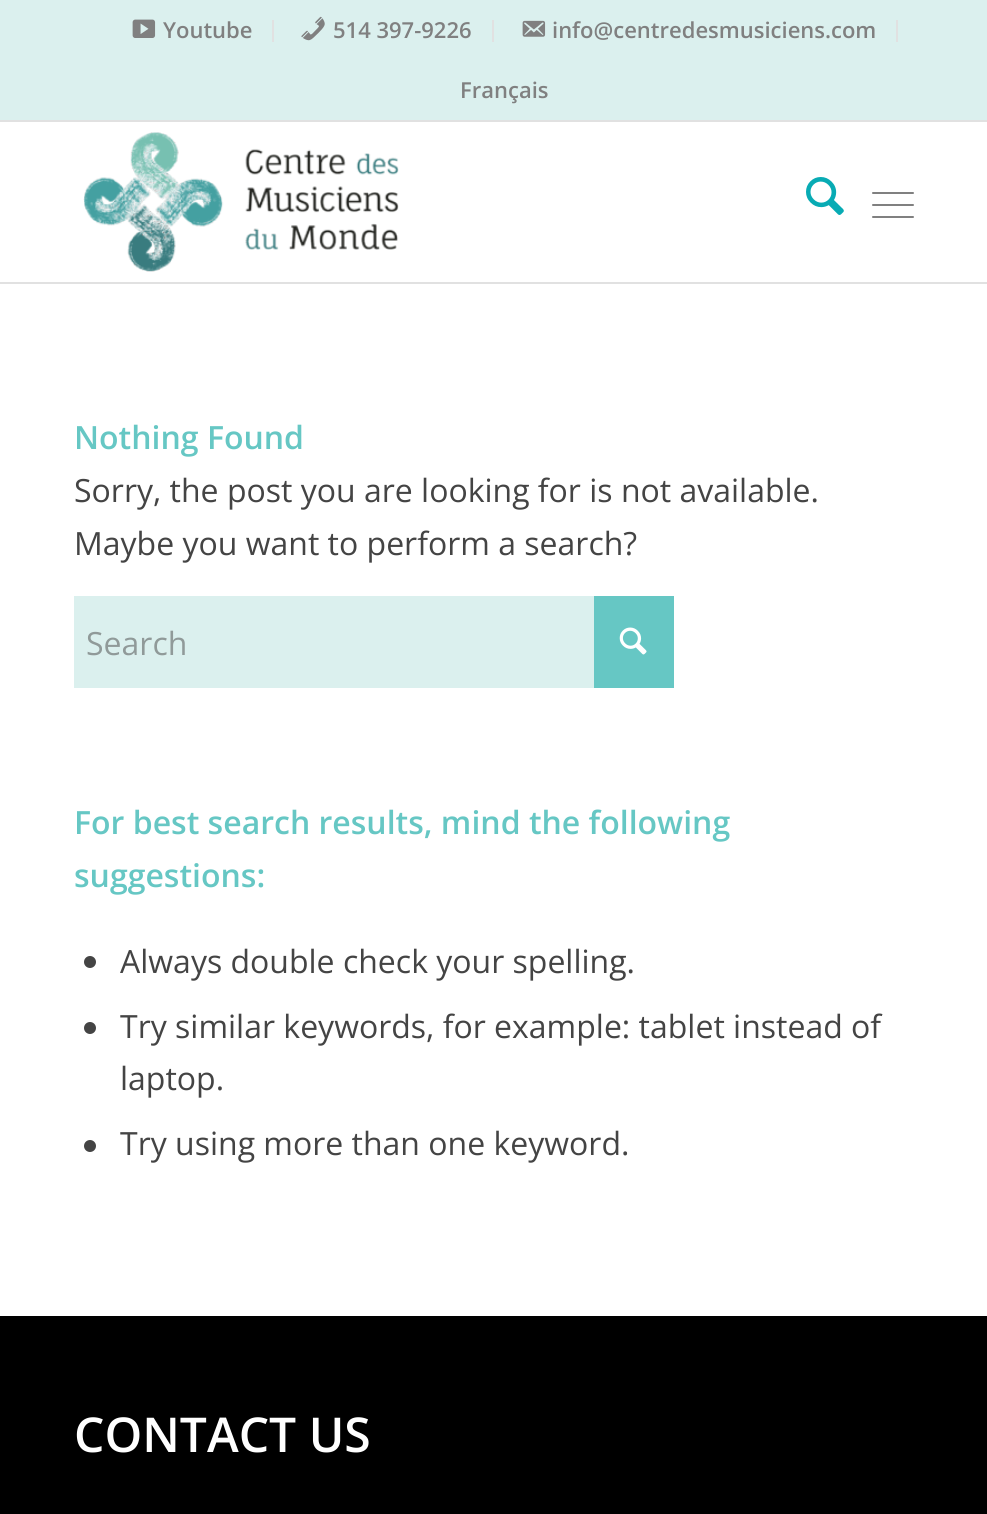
import math
import cairo

surface = cairo.ImageSurface(cairo.FORMAT_RGB24, 987, 1514)
cr = cairo.Context(surface)
options = cairo.FontOptions()
options.set_hint_metrics(cairo.HINT_METRICS_OFF)
options.set_hint_style(cairo.HINT_STYLE_NONE)
cr.set_font_options(options)
cr.set_miter_limit(4)


def rgb(code):
    cr.set_source_rgb(*(v / 255 for v in bytes.fromhex(code[-6:])))


def rrect(x, y, w, h, r):
    cr.new_sub_path()
    for i, (u, v) in enumerate([(x + w - r, y + h - r), (x + r, y + h - r), (x + r, y + r), (x + w - r, y + r)]):
        cr.arc(u, v, r, i * math.pi / 2, (i + 1) * math.pi / 2)
    cr.close_path()


def image(path, x, y, w, h):
    cr.save()
    cr.set_source_surface(cairo.ImageSurface.create_from_png(path), x, y)
    cr.rectangle(x, y, w, h)
    cr.fill()
    cr.restore()


rgb("#ffffff")
cr.paint()
for x, y, w, h, color in [
    (0, 0, 987, 120, "#dbf0ee"),
    (0, 120, 987, 2, "#e1e1e1"),
    (272, 20, 2, 22, "#e1e1e1"),
]:
    rgb(color)
    cr.rectangle(x, y, w, h)
    cr.fill()
image("img/1.png", 132, 19, 24, 19)
cr.rectangle(492, 20, 2, 22)
cr.fill()
image("img/2.png", 301, 16, 24, 25)
cr.rectangle(896, 20, 2, 22)
cr.fill()
image("img/3.png", 522, 20, 24, 17)
cr.rectangle(0, 282, 987, 2)
cr.fill()
image("img/4.png", 83, 132, 316, 140)
image("img/5.png", 806, 177, 38, 38)
rgb("#808080")
rrect(872, 204, 42, 2, 1)
cr.fill()
rrect(872, 192, 42, 2, 1)
cr.fill()
rrect(872, 216, 42, 2, 1)
cr.fill()
rgb("#66c7c4")
cr.rectangle(594, 596, 80, 92)
cr.fill()
rgb("#dbf0ee")
cr.rectangle(74, 596, 520, 92)
cr.fill()
image("img/6.png", 619, 627, 28, 28)
rgb("#444444")
cr.arc(90, 962, 6, 0, 2 * math.pi)
cr.fill()
cr.arc(90, 1028, 6, 0, 2 * math.pi)
cr.fill()
cr.arc(90, 1146, 6, 0, 2 * math.pi)
cr.fill()
rgb("#000000")
cr.rectangle(0, 1316, 987, 198)
cr.fill()
cr.select_font_face("Open Sans SemiBold")
cr.set_font_size(22)
rgb("#808080")
for x, y, s in [
    (163, 38, "Youtube"),
    (333, 38, "514 397-9226"),
    (552, 38, "info@centredesmusiciens.com"),
    (460, 98, "Français"),
]:
    cr.move_to(x, y)
    cr.show_text(s)
cr.set_font_size(32)
rgb("#66c7c4")
cr.move_to(74, 449)
cr.show_text("Nothing Found")
cr.select_font_face("Open Sans")
rgb("#444444")
cr.move_to(74, 502)
cr.show_text("Sorry, the post you are looking for is not available.")
cr.move_to(74, 555)
cr.show_text("Maybe you want to perform a search?")
rgb("#909a99")
cr.move_to(86, 655)
cr.show_text("Search")
cr.select_font_face("Open Sans SemiBold")
rgb("#66c7c4")
cr.move_to(74, 834)
cr.show_text("For best search results, mind the following")
cr.move_to(74, 887)
cr.show_text("suggestions:")
cr.select_font_face("Open Sans")
rgb("#444444")
for x, y, s in [
    (120, 973, "Always double check your spelling."),
    (120, 1038, "Try similar keywords, for example: tablet instead of"),
    (120, 1090, "laptop."),
    (120, 1155, "Try using more than one keyword."),
]:
    cr.move_to(x, y)
    cr.show_text(s)
cr.select_font_face("Open Sans SemiBold")
cr.set_font_size(48)
rgb("#ffffff")
cr.move_to(74, 1452)
cr.show_text("CONTACT US")
surface.write_to_png("page.png")
